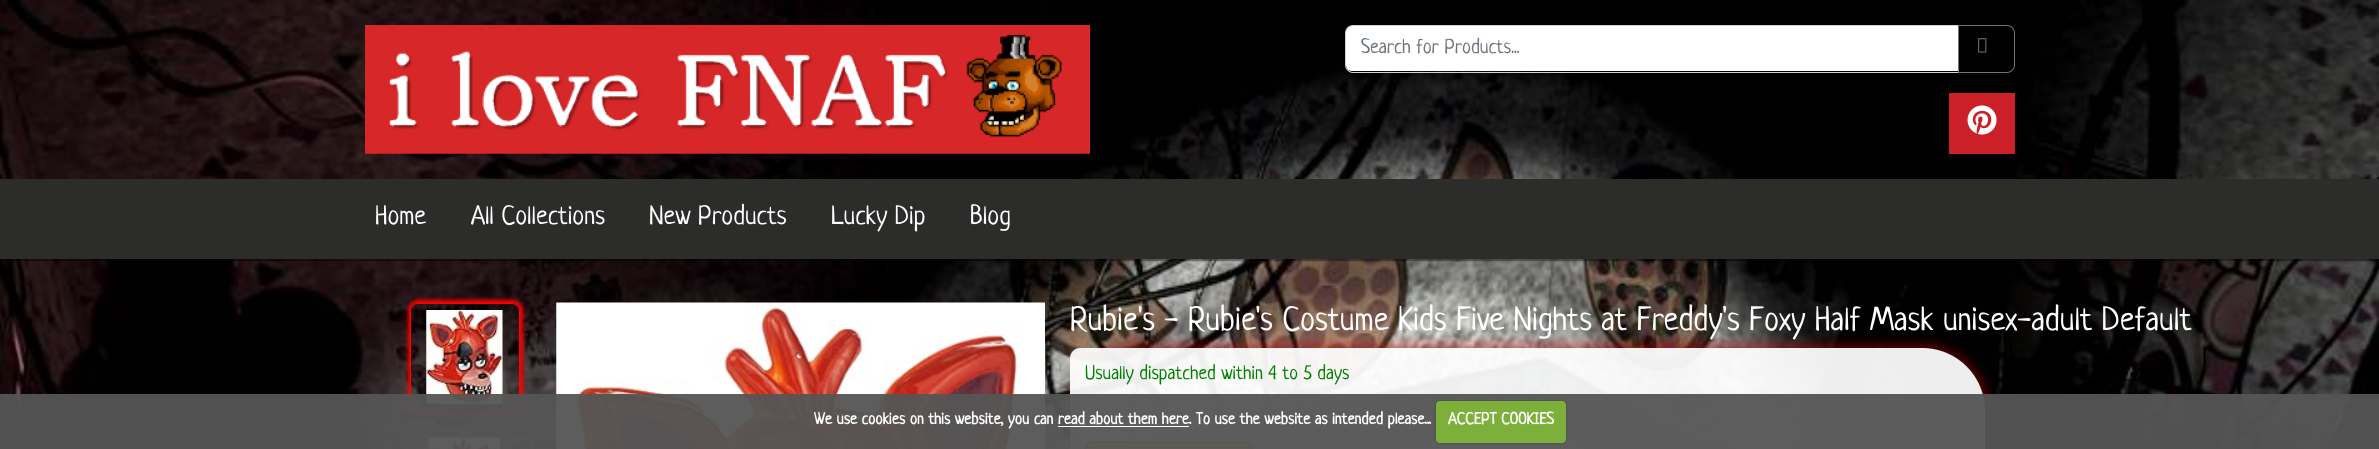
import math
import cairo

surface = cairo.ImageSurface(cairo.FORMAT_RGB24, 2379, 449)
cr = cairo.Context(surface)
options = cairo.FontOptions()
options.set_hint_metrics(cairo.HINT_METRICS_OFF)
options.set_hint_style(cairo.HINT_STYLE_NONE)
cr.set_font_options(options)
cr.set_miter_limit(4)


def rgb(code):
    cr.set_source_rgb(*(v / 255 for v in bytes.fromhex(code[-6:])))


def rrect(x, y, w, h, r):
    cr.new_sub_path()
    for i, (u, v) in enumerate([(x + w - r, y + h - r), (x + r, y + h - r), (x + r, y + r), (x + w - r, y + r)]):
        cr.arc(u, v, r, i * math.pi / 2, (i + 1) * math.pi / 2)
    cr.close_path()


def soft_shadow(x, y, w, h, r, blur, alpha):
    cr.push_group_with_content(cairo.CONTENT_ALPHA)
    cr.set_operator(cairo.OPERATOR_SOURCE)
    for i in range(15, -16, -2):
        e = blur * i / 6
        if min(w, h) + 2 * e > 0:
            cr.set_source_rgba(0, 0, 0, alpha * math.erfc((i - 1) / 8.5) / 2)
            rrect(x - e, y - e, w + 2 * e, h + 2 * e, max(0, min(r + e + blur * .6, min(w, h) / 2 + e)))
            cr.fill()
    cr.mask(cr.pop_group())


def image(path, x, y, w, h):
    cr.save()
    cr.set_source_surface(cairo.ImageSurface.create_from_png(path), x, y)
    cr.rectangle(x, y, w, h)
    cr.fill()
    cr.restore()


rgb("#ffffff")
cr.paint()
image("img/1.png", 0, 0, 2379, 449)
image("img/2.png", 365, 25, 725, 129)
rgb("#ffffff")
cr.new_path()
cr.move_to(1352, 26)
cr.line_to(1958, 26)
cr.line_to(1958, 71)
cr.line_to(1352, 71)
cr.curve_to(1348.5, 71, 1346, 68.5, 1346, 65)
cr.line_to(1346, 32)
cr.curve_to(1346, 28.5, 1348.5, 26, 1352, 26)
cr.close_path()
cr.fill()
cr.new_path()
cr.move_to(1353, 25.5)
cr.line_to(1958.5, 25.5)
cr.line_to(1958.5, 72.5)
cr.line_to(1353, 72.5)
cr.curve_to(1349, 72.5, 1345.5, 69, 1345.5, 65)
cr.line_to(1345.5, 33)
cr.curve_to(1345.5, 29, 1349, 25.5, 1353, 25.5)
cr.close_path()
rgb("#ced4da")
cr.set_line_width(1)
cr.stroke()
cr.new_path()
cr.move_to(1958.5, 25.5)
cr.line_to(2007, 25.5)
cr.curve_to(2011, 25.5, 2014.5, 29, 2014.5, 33)
cr.line_to(2014.5, 65)
cr.curve_to(2014.5, 69, 2011, 72.5, 2007, 72.5)
cr.line_to(1958.5, 72.5)
cr.close_path()
rgb("#6c757d")
cr.stroke()
image("img/3.png", 1978, 38, 9, 15)
rgb("#cb2027")
cr.rectangle(1949, 93, 66, 61)
cr.fill()
image("img/4.png", 1967, 105, 30, 30)
rgb("#000000")
soft_shadow(0, 181, 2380, 80, 0, 0.5, 0.43)
rgb("#2c2c2b")
cr.rectangle(0, 179, 2379, 80)
cr.fill()
cr.save()
cr.set_fill_rule(cairo.FILL_RULE_EVEN_ODD)
cr.new_path()
cr.move_to(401, 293)
cr.line_to(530, 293)
cr.line_to(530, 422)
cr.line_to(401, 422)
cr.close_path()
cr.move_to(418, 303)
cr.line_to(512, 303)
cr.curve_to(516.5, 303, 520, 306.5, 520, 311)
cr.line_to(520, 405)
cr.curve_to(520, 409.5, 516.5, 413, 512, 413)
cr.line_to(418, 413)
cr.curve_to(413.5, 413, 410, 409.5, 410, 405)
cr.line_to(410, 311)
cr.curve_to(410, 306.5, 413.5, 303, 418, 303)
cr.close_path()
cr.clip()
rgb("#ff0000")
soft_shadow(408, 300, 115, 115, 10, 2, 1)
cr.restore()
image("img/5.png", 426, 310, 77, 94)
rrect(410.5, 303.5, 109, 109, 7.5)
rgb("#ff0000")
cr.stroke()
image("img/6.png", 428, 437, 72, 12)
image("img/7.png", 556, 302, 489, 147)
cr.save()
cr.set_fill_rule(cairo.FILL_RULE_EVEN_ODD)
cr.new_path()
cr.move_to(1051, 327)
cr.line_to(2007, 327)
cr.line_to(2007, 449)
cr.line_to(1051, 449)
cr.close_path()
cr.move_to(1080, 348)
cr.line_to(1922, 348)
cr.curve_to(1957, 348, 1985, 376, 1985, 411)
cr.line_to(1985, 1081)
cr.curve_to(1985, 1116, 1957, 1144, 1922, 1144)
cr.line_to(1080, 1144)
cr.curve_to(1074.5, 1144, 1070, 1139.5, 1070, 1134)
cr.line_to(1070, 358)
cr.curve_to(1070, 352.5, 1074.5, 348, 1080, 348)
cr.close_path()
cr.clip()
rgb("#b90000")
soft_shadow(1069, 345, 920, 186, 65, 5.5, 0.55)
cr.restore()
cr.set_source_rgba(1, 1, 1, 0.93)
cr.new_path()
cr.move_to(1080, 348)
cr.line_to(1922, 348)
cr.curve_to(1957, 348, 1985, 376, 1985, 411)
cr.line_to(1985, 449)
cr.curve_to(1985, 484, 1957, 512, 1922, 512)
cr.line_to(1080, 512)
cr.curve_to(1074.5, 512, 1070, 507.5, 1070, 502)
cr.line_to(1070, 358)
cr.curve_to(1070, 352.5, 1074.5, 348, 1080, 348)
cr.close_path()
cr.fill()
rgb("#f0c14b")
rrect(1085, 441, 168, 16, 8)
cr.fill()
cr.new_path()
cr.move_to(1087.5, 444)
cr.curve_to(1089, 442.5, 1090.5, 442, 1092.5, 442)
cr.line_to(1245, 442)
cr.curve_to(1247, 442, 1248.5, 442.5, 1250, 444)
rgb("#a88734")
cr.set_line_width(1.2)
cr.stroke()
cr.new_path()
cr.move_to(1250, 444)
cr.curve_to(1251, 445, 1252, 447, 1252, 449)
cr.line_to(1252, 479)
cr.curve_to(1252, 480.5, 1251, 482.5, 1250, 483.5)
rgb("#9c7e31")
cr.stroke()
cr.new_path()
cr.move_to(1087.5, 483.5)
cr.curve_to(1086.5, 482.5, 1085.5, 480.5, 1085.5, 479)
cr.line_to(1085.5, 449)
cr.curve_to(1085.5, 447, 1086.5, 445, 1087.5, 444)
cr.stroke()
cr.set_source_rgba(0.337, 0.337, 0.337, 0.95)
cr.rectangle(0, 394, 2379, 55)
cr.fill()
rgb("#000000")
soft_shadow(1436, 401, 130, 42, 4, 1, 0.25)
rgb("#7daf3b")
rrect(1436, 401, 130, 42, 4)
cr.fill()
rgb("#ffffff")
cr.rectangle(1058, 426, 131, 1)
cr.fill()
cr.select_font_face("Neucha")
cr.set_font_size(20)
rgb("#6c757d")
cr.move_to(1361, 53)
cr.show_text("Search for Products...")
cr.set_font_size(26.5)
rgb("#ffffff")
for x, y, s in [
    (375, 224, "Home"),
    (471, 224, "All Collections"),
    (649, 224, "New Products"),
    (831, 224, "Lucky Dip"),
    (970, 224, "Blog"),
]:
    cr.move_to(x, y)
    cr.show_text(s)
cr.set_font_size(33.6)
cr.move_to(1070, 330)
cr.show_text("Rubie's - Rubie's Costume Kids Five Nights at Freddy's Foxy Half Mask unisex-adult Default")
cr.set_font_size(19.5)
rgb("#008000")
cr.move_to(1085, 379)
cr.show_text("Usually dispatched within 4 to 5 days")
cr.select_font_face("Neucha", cairo.FONT_SLANT_NORMAL, cairo.FONT_WEIGHT_BOLD)
cr.set_font_size(16.25)
rgb("#ffffff")
cr.move_to(814, 424)
cr.show_text("We use cookies on this website, you can read about them here. To use the website as intended please...")
cr.move_to(1448, 424)
cr.show_text("ACCEPT COOKIES")
surface.write_to_png("page.png")
